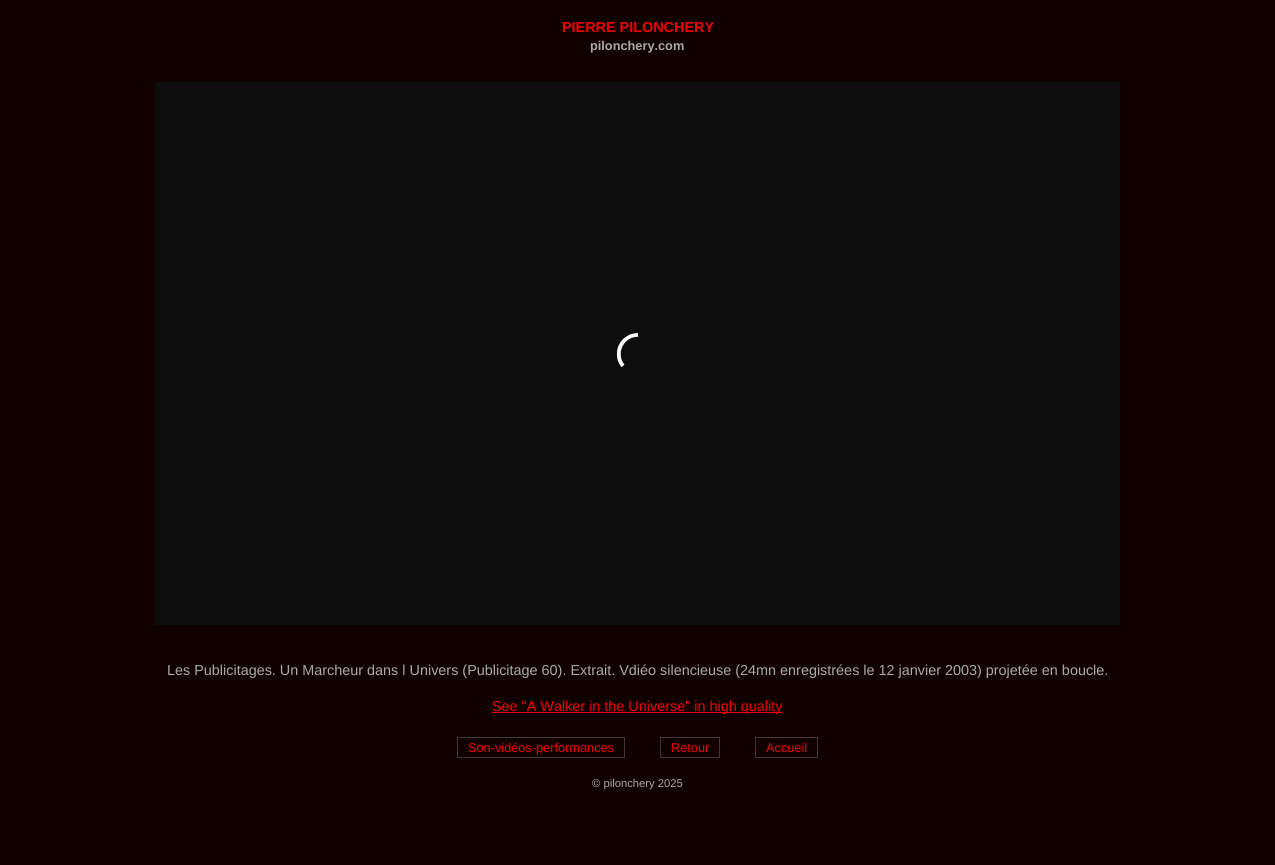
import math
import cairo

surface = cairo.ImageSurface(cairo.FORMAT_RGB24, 1275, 865)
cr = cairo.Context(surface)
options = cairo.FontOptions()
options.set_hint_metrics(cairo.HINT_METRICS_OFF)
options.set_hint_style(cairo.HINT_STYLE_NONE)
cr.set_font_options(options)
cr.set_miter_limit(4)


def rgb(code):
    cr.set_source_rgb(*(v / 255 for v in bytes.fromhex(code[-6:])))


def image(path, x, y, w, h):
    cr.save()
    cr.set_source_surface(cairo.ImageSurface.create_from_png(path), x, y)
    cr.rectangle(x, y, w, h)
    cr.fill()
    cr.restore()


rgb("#110000")
cr.paint()
image("img/1.png", 155, 82, 965, 543)
rgb("#ee0000")
cr.rectangle(492, 712, 291, 1)
cr.fill()
cr.rectangle(457.5, 737.5, 167, 20)
rgb("#453434")
cr.set_line_width(1)
cr.stroke()
cr.rectangle(660.5, 737.5, 59, 20)
cr.stroke()
cr.rectangle(755.5, 737.5, 62, 20)
cr.stroke()
cr.select_font_face("Liberation Sans", cairo.FONT_SLANT_NORMAL, cairo.FONT_WEIGHT_BOLD)
cr.set_font_size(14.4)
rgb("#ee0000")
cr.move_to(562, 32)
cr.show_text("PIERRE PILONCHERY")
cr.set_font_size(12.75)
rgb("#aaaaaa")
cr.move_to(590, 50)
cr.show_text("pilonchery.com")
cr.select_font_face("Liberation Sans")
cr.set_font_size(14.4)
cr.move_to(167, 675)
cr.show_text("Les Publicitages. Un Marcheur dans l Univers (Publicitage 60). Extrait. Vdiéo silencieuse (24mn enregistrées le 12 janvier 2003) projetée en boucle.")
rgb("#ee0000")
cr.move_to(492, 711)
cr.show_text("See \"A Walker in the Universe\" in high quality")
cr.set_font_size(12.75)
for x, y, s in [
    (468, 752, "Son-vidéos-performances"),
    (671, 752, "Retour"),
    (766, 752, "Accueil"),
]:
    cr.move_to(x, y)
    cr.show_text(s)
cr.set_font_size(11.25)
rgb("#aaaaaa")
cr.move_to(592, 787)
cr.show_text("© pilonchery 2025")
surface.write_to_png("page.png")
